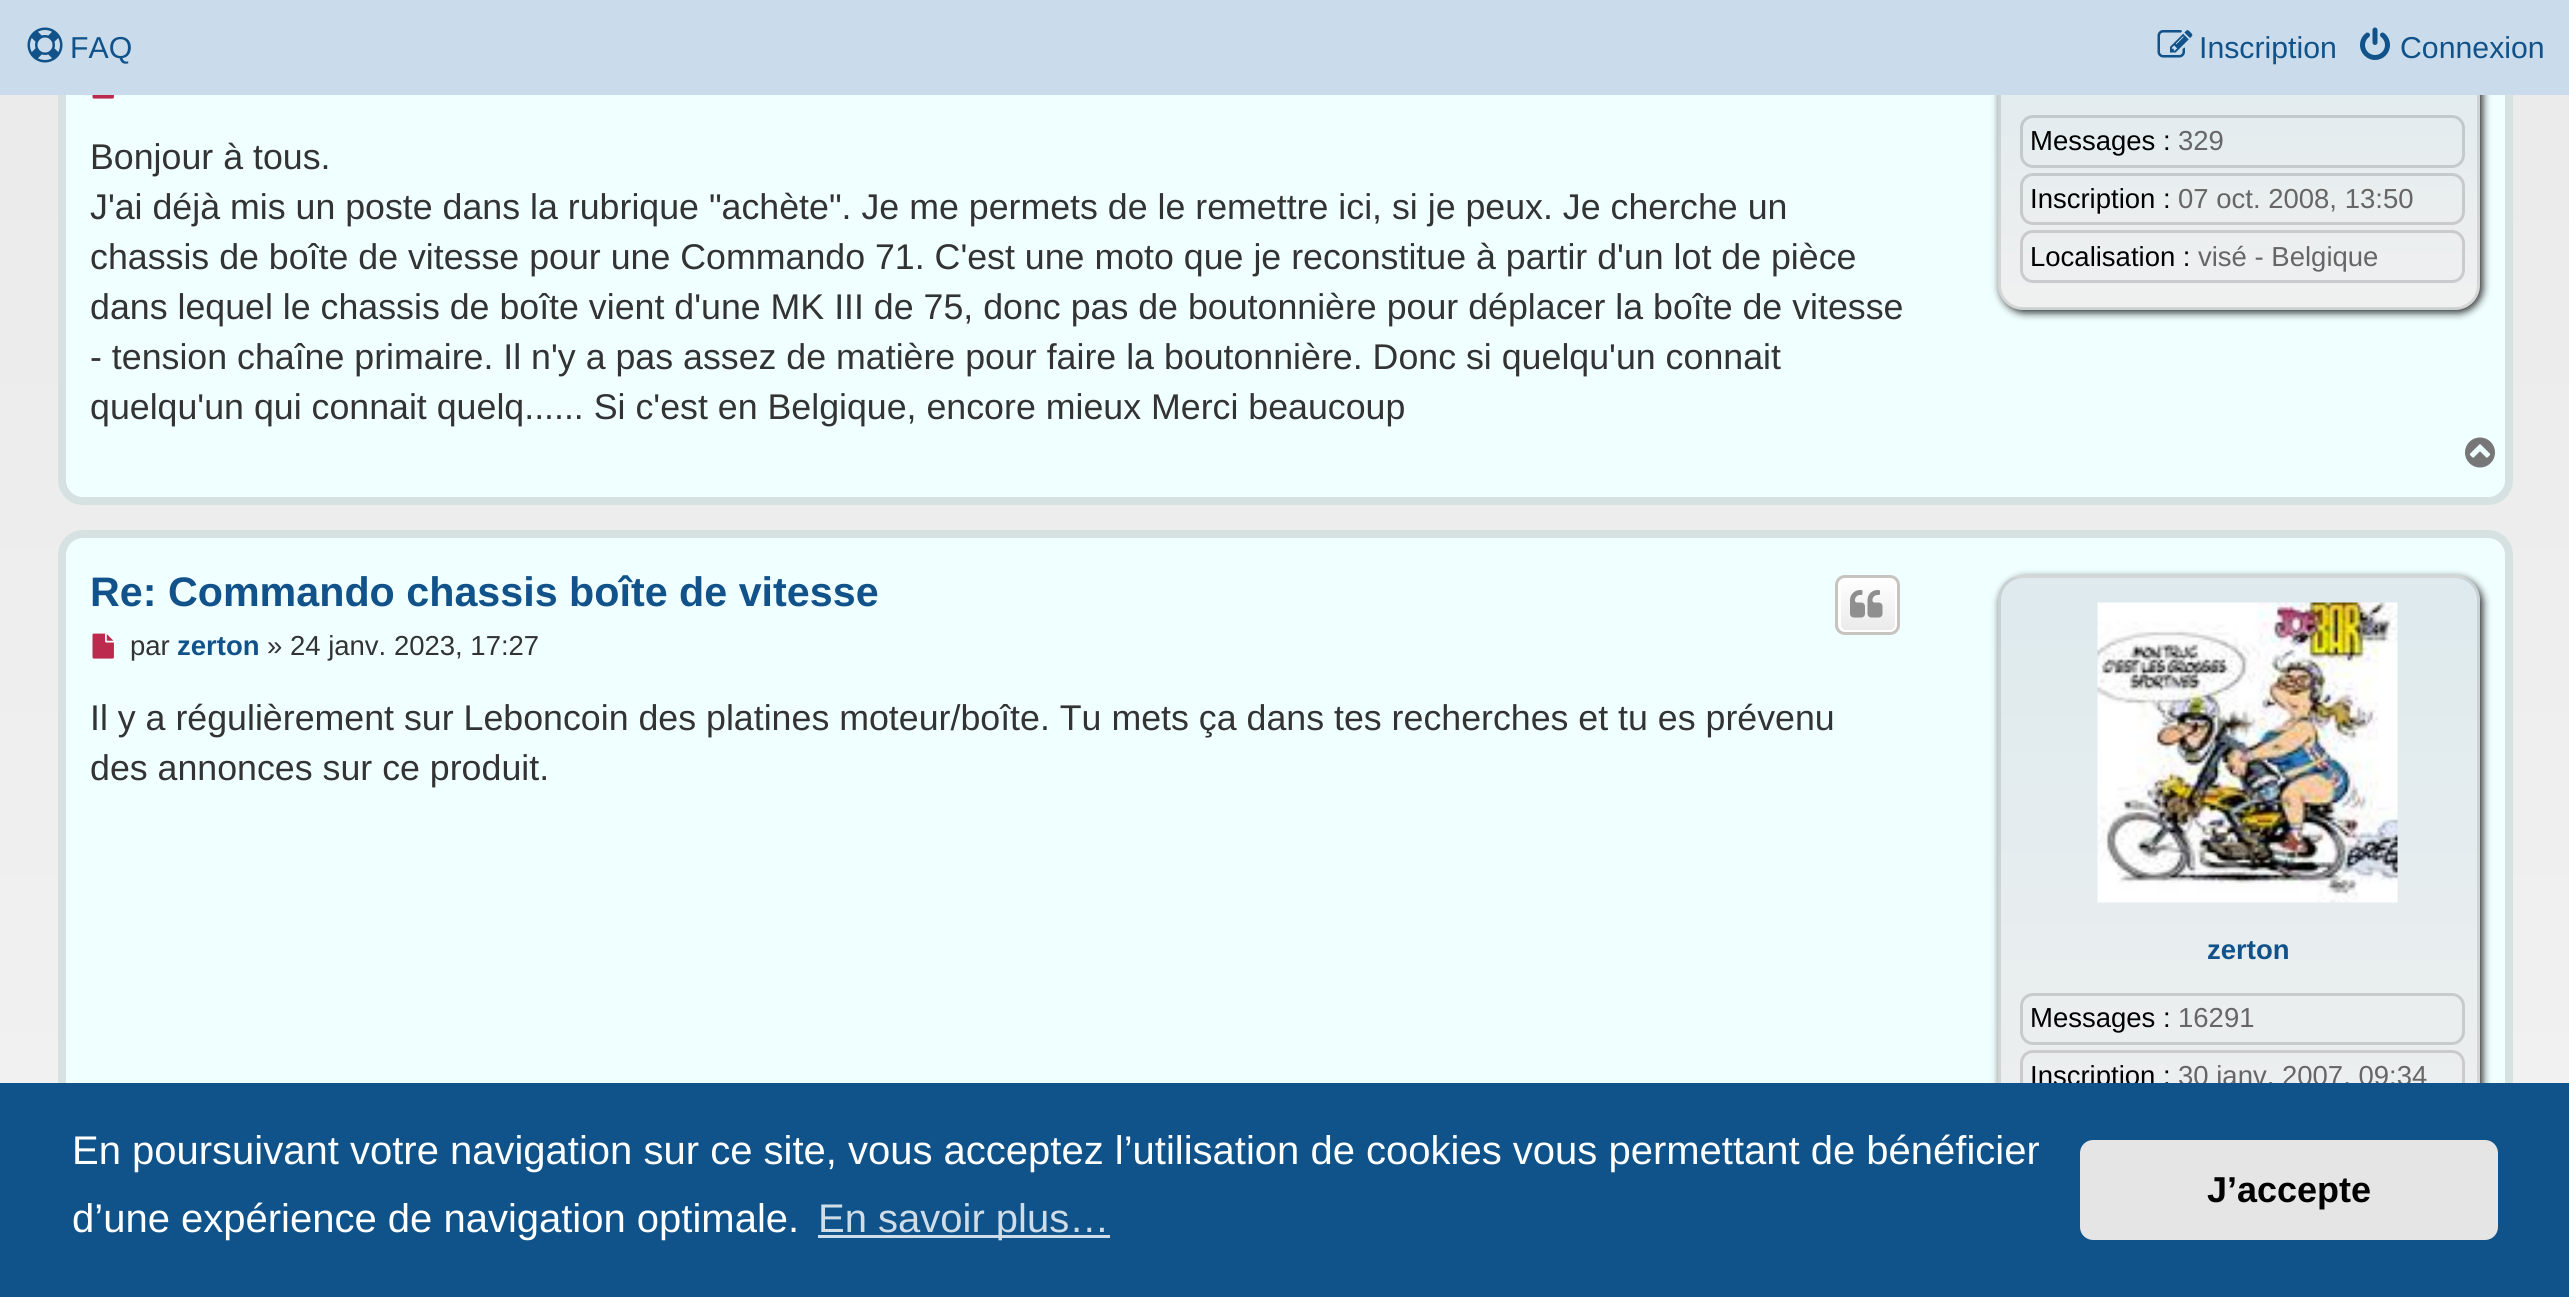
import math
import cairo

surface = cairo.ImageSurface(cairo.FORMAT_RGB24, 2569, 1297)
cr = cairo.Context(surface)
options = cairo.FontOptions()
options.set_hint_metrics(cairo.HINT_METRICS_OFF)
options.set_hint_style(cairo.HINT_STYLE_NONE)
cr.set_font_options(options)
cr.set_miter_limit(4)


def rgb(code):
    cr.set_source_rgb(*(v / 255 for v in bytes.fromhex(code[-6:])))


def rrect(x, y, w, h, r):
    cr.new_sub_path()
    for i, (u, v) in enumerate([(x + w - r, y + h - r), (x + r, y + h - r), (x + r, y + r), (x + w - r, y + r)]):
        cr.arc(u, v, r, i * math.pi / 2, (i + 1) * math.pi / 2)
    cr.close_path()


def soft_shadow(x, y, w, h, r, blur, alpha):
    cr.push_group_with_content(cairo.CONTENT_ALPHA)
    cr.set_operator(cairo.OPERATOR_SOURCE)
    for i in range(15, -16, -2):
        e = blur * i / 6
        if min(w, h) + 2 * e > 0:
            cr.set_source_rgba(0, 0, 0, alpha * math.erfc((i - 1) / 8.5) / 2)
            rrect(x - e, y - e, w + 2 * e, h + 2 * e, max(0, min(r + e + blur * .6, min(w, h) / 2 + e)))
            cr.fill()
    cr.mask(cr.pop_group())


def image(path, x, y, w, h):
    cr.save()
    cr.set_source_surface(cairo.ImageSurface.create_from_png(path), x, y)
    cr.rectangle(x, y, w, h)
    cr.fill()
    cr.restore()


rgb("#ffffff")
cr.paint()
gradient = cairo.LinearGradient(1285, -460, 1285, 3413)
gradient.add_color_stop_rgba(0.03, 0.91, 0.91, 0.91, 1)
gradient.add_color_stop_rgba(1, 1, 1, 1, 1)
cr.set_source(gradient)
cr.rectangle(0, 95, 2569, 988)
cr.fill()
rgb("#f0ffff")
rrect(58, -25, 2455, 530, 25)
cr.fill()
rrect(62, -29, 2447, 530, 21)
cr.set_source_rgba(0.439, 0.439, 0.439, 0.2)
cr.set_line_width(8)
cr.stroke()
rgb("#333333")
soft_shadow(2000, 8, 483, 305, 25, 4, 1)
cr.save()
rrect(1998, 5, 482, 305, 25)
cr.clip()
gradient = cairo.LinearGradient(2239, 7.5, 2239, 308)
gradient.add_color_stop_rgba(0.03, 0.871, 0.918, 0.933, 1)
gradient.add_color_stop_rgba(1, 0.941, 0.941, 0.941, 1)
cr.set_source(gradient)
cr.rectangle(1998, 95, 482, 213)
cr.fill()
gradient = cairo.LinearGradient(2239, 307, 2239, 608)
gradient.add_color_stop_rgba(0.03, 0.871, 0.918, 0.933, 1)
gradient.add_color_stop_rgba(1, 0.941, 0.941, 0.941, 1)
cr.set_source(gradient)
cr.rectangle(2013, 308, 452, 2)
cr.fill()
cr.restore()
rrect(1999.5, 6.5, 479, 302, 23.5)
cr.set_source_rgba(0.439, 0.439, 0.439, 0.2)
cr.set_line_width(3)
cr.stroke()
rgb("#cadceb")
cr.rectangle(0, 0, 2569, 95)
cr.fill()
image("img/1.png", 27, 27, 36, 36)
image("img/2.png", 2157, 30, 36, 28)
image("img/3.png", 2360, 27, 30, 33)
image("img/4.png", 92, 95, 22, 4)
rrect(2021.5, 116.5, 442, 50, 11.5)
cr.set_source_rgba(0.251, 0.251, 0.251, 0.2)
cr.stroke()
rrect(2021.5, 174.5, 442, 49, 11.5)
cr.stroke()
rrect(2021.5, 231.5, 442, 50, 11.5)
cr.stroke()
image("img/5.png", 2465, 437, 30, 31)
rgb("#f0ffff")
rrect(58, 530, 2455, 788, 25)
cr.fill()
rrect(62, 534, 2447, 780, 21)
cr.set_source_rgba(0.439, 0.439, 0.439, 0.2)
cr.set_line_width(8)
cr.stroke()
cr.save()
rrect(1835, 575, 65, 60, 10)
cr.clip()
gradient = cairo.LinearGradient(1868, 578, 1868, 633)
gradient.add_color_stop_rgba(0, 1, 1, 1, 1)
gradient.add_color_stop_rgba(1, 0.914, 0.914, 0.914, 1)
cr.set_source(gradient)
cr.rectangle(1835, 578, 65, 55)
cr.fill()
cr.restore()
rrect(1839.5, 579.5, 57, 52, 6.5)
rgb("#ffffff")
cr.set_line_width(3)
cr.stroke()
rrect(1836.5, 576.5, 62, 57, 8.5)
rgb("#c7c3bf")
cr.stroke()
image("img/6.png", 1850, 590, 33, 28)
image("img/7.png", 92, 633, 22, 26)
rgb("#333333")
soft_shadow(2000, 578, 483, 647, 25, 4, 1)
cr.save()
rrect(1998, 575, 482, 648, 25)
cr.clip()
gradient = cairo.LinearGradient(2239, -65, 2239, 578)
gradient.add_color_stop_rgba(0.03, 0.871, 0.918, 0.933, 1)
gradient.add_color_stop_rgba(1, 0.941, 0.941, 0.941, 1)
cr.set_source(gradient)
cr.rectangle(2011, 575, 456, 3)
cr.fill()
gradient = cairo.LinearGradient(2239, 578, 2239, 1220)
gradient.add_color_stop_rgba(0.03, 0.871, 0.918, 0.933, 1)
gradient.add_color_stop_rgba(1, 0.941, 0.941, 0.941, 1)
cr.set_source(gradient)
cr.rectangle(1998, 578, 482, 505)
cr.fill()
cr.restore()
rrect(1999.5, 576.5, 479, 645, 23.5)
cr.set_source_rgba(0.439, 0.439, 0.439, 0.2)
cr.stroke()
image("img/8.png", 2097, 602, 301, 301)
rrect(2021.5, 994.5, 442, 49, 11.5)
rgb("#c8cbcc")
cr.stroke()
rrect(2021.5, 1051.5, 442, 50, 11.5)
rgb("#cacccc")
cr.stroke()
cr.select_font_face("Liberation Sans")
cr.set_font_size(30.25)
rgb("#105289")
for x, y, s in [
    (70, 58, "FAQ"),
    (2199, 58, "Inscription"),
    (2400, 58, "Connexion"),
]:
    cr.move_to(x, y)
    cr.show_text(s)
cr.set_font_size(35.75)
rgb("#333333")
for x, y, s in [
    (90, 169, "Bonjour à tous."),
    (90, 219, "J'ai déjà mis un poste dans la rubrique \"achète\". Je me permets de le remettre ici, si je peux. Je cherche un"),
    (90, 269, "chassis de boîte de vitesse pour une Commando 71. C'est une moto que je reconstitue à partir d'un lot de pièce"),
    (90, 319, "dans lequel le chassis de boîte vient d'une MK III de 75, donc pas de boutonnière pour déplacer la boîte de vitesse"),
    (90, 369, "- tension chaîne primaire. Il n'y a pas assez de matière pour faire la boutonnière. Donc si quelqu'un connait"),
    (90, 419, "quelqu'un qui connait quelq...... Si c'est en Belgique, encore mieux Merci beaucoup"),
]:
    cr.move_to(x, y)
    cr.show_text(s)
cr.set_font_size(27.5)
rgb("#000000")
cr.move_to(2030, 150)
cr.show_text("Messages :")
rgb("#666666")
cr.move_to(2178, 150)
cr.show_text("329")
rgb("#000000")
cr.move_to(2030, 208)
cr.show_text("Inscription :")
rgb("#666666")
cr.move_to(2178, 208)
cr.show_text("07 oct. 2008, 13:50")
rgb("#000000")
cr.move_to(2030, 266)
cr.show_text("Localisation :")
rgb("#666666")
cr.move_to(2198, 266)
cr.show_text("visé - Belgique")
cr.select_font_face("Liberation Sans", cairo.FONT_SLANT_NORMAL, cairo.FONT_WEIGHT_BOLD)
cr.set_font_size(41.25)
rgb("#105289")
cr.move_to(90, 606)
cr.show_text("Re: Commando chassis boîte de vitesse")
cr.select_font_face("Liberation Sans")
cr.set_font_size(27.5)
rgb("#333333")
cr.move_to(130, 655)
cr.show_text("par")
cr.select_font_face("Liberation Sans", cairo.FONT_SLANT_NORMAL, cairo.FONT_WEIGHT_BOLD)
rgb("#105289")
cr.move_to(177, 655)
cr.show_text("zerton")
cr.select_font_face("Liberation Sans")
rgb("#333333")
cr.move_to(267, 655)
cr.show_text("» 24 janv. 2023, 17:27")
cr.set_font_size(35.75)
cr.move_to(90, 730)
cr.show_text("Il y a régulièrement sur Leboncoin des platines moteur/boîte. Tu mets ça dans tes recherches et tu es prévenu")
cr.move_to(90, 780)
cr.show_text("des annonces sur ce produit.")
cr.select_font_face("Liberation Sans", cairo.FONT_SLANT_NORMAL, cairo.FONT_WEIGHT_BOLD)
cr.set_font_size(27.5)
rgb("#105289")
cr.move_to(2207, 959)
cr.show_text("zerton")
cr.select_font_face("Liberation Sans")
rgb("#000000")
cr.move_to(2030, 1027)
cr.show_text("Messages :")
rgb("#666666")
cr.move_to(2178, 1027)
cr.show_text("16291")
rgb("#000000")
cr.move_to(2030, 1085)
cr.show_text("Inscription :")
rgb("#666666")
cr.move_to(2178, 1085)
cr.show_text("30 janv. 2007, 09:34")
rgb("#0f538a")
cr.rectangle(0, 1083, 2569, 214)
cr.fill()
cr.set_font_size(40)
rgb("#ffffff")
cr.move_to(72, 1164)
cr.show_text("En poursuivant votre navigation sur ce site, vous acceptez l’utilisation de cookies vous permettant de bénéficier")
cr.move_to(72, 1232)
cr.show_text("d’une expérience de navigation optimale.")
rgb("#cfdde8")
cr.rectangle(818, 1235, 292, 3)
cr.fill()
cr.move_to(818, 1232)
cr.show_text("En savoir plus…")
rgb("#e5e5e5")
rrect(2080, 1140, 418, 100, 13)
cr.fill()
cr.select_font_face("Liberation Sans", cairo.FONT_SLANT_NORMAL, cairo.FONT_WEIGHT_BOLD)
cr.set_font_size(36)
rgb("#000000")
cr.move_to(2207, 1202)
cr.show_text("J’accepte")
surface.write_to_png("page.png")
